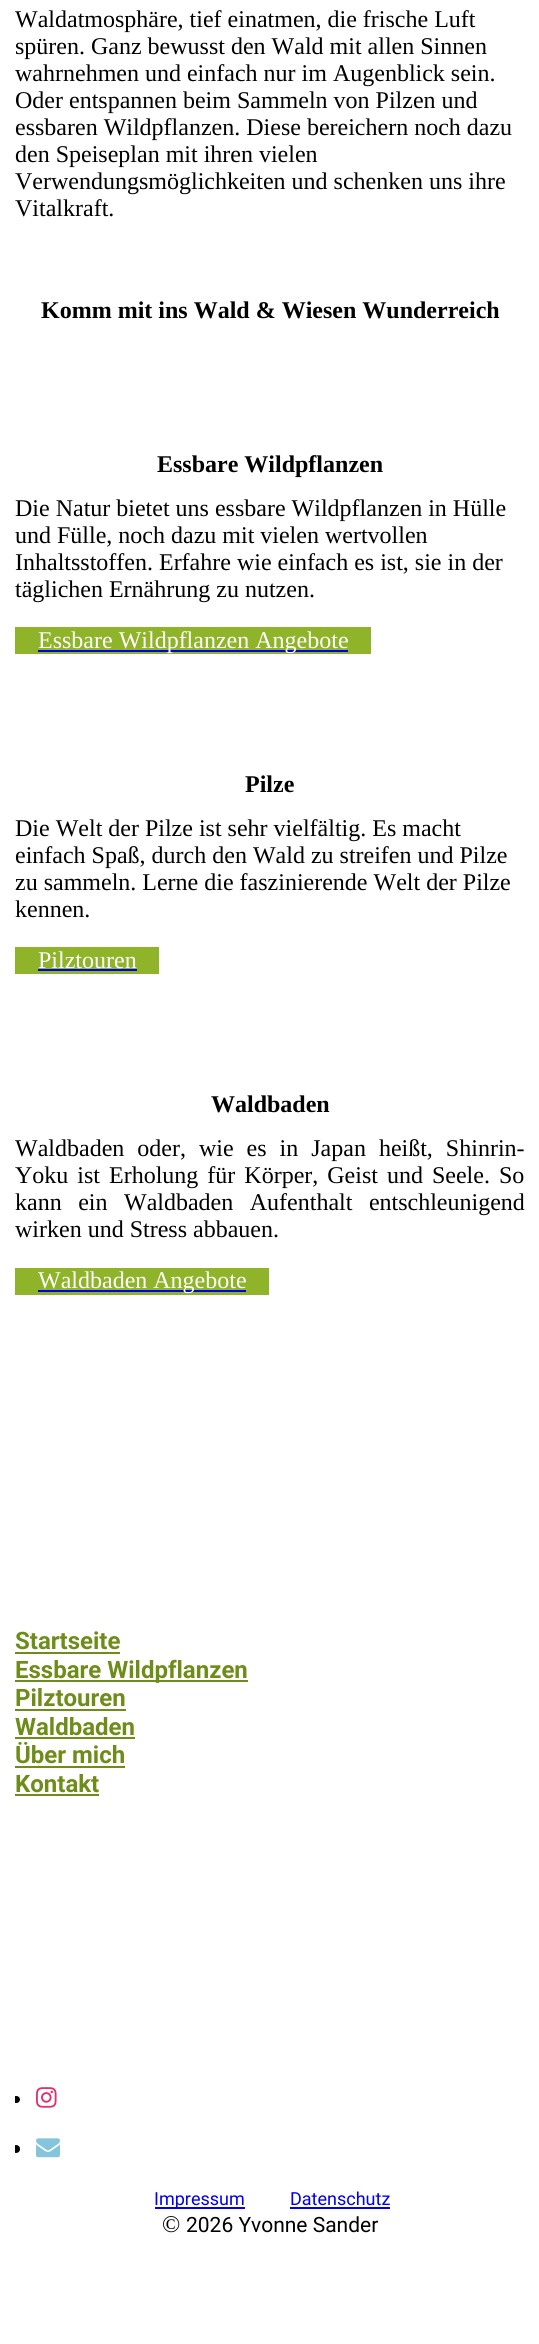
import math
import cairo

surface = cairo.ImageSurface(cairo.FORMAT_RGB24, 539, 2344)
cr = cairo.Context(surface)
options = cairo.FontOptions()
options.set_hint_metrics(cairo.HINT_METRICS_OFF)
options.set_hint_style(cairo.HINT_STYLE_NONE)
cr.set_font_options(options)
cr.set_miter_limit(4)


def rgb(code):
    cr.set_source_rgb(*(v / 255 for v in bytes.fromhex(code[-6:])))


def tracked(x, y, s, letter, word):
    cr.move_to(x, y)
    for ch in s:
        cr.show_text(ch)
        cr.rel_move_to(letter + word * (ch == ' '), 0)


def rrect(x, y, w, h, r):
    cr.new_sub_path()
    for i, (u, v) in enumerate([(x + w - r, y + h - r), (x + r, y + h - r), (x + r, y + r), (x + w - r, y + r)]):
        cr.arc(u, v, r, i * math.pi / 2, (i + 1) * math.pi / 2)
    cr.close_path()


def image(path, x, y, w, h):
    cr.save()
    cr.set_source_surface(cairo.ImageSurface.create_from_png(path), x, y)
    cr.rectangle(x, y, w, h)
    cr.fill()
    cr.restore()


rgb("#ffffff")
cr.paint()
cr.save()
cr.rectangle(15, 627, 510, 27)
cr.clip()
rgb("#8fb429")
rrect(15, 612, 356, 56, 15)
cr.fill()
cr.restore()
for x, y, w, h, color in [
    (38, 650, 310, 2, "#0000ee"),
    (15, 947, 144, 27, "#8fb429"),
    (38, 969, 99, 2, "#0000ee"),
    (15, 1268, 254, 27, "#8fb429"),
    (38, 1290, 208, 2, "#0000ee"),
    (15, 1652, 105, 2, "#6e8d18"),
    (15, 1680, 233, 2, "#6e8d18"),
    (15, 1709, 111, 2, "#6e8d18"),
    (15, 1737, 120, 2, "#6e8d18"),
    (15, 1766, 110, 2, "#6e8d18"),
    (15, 1794, 84, 2, "#6e8d18"),
]:
    rgb(color)
    cr.rectangle(x, y, w, h)
    cr.fill()
cr.save()
cr.rectangle(15, 2085, 510, 42)
cr.clip()
rgb("#000000")
rrect(12, 2096, 8, 7, 3.5)
cr.fill()
cr.restore()
image("img/1.png", 36, 2087, 21, 21)
cr.save()
cr.rectangle(15, 2135, 510, 42)
cr.clip()
rgb("#000000")
cr.arc(16, 2149, 4, 0, 2 * math.pi)
cr.fill()
cr.restore()
image("img/2.png", 36, 2138, 24, 20)
rgb("#0000ee")
cr.rectangle(155, 2207, 90, 2)
cr.fill()
cr.rectangle(290, 2207, 100, 2)
cr.fill()
cr.select_font_face("Liberation Serif")
cr.set_font_size(24)
rgb("#000000")
for x, y, s in [
    (15, 27, "Waldatmosphäre, tief einatmen, die frische Luft"),
    (15, 54, "spüren. Ganz bewusst den Wald mit allen Sinnen"),
    (15, 81, "wahrnehmen und einfach nur im Augenblick sein."),
    (15, 108, "Oder entspannen beim Sammeln von Pilzen und"),
    (15, 135, "essbaren Wildpflanzen. Diese bereichern noch dazu"),
    (15, 162, "den Speiseplan mit ihren vielen"),
    (15, 189, "Verwendungsmöglichkeiten und schenken uns ihre"),
    (15, 216, "Vitalkraft."),
]:
    cr.move_to(x, y)
    cr.show_text(s)
cr.select_font_face("Liberation Serif", cairo.FONT_SLANT_NORMAL, cairo.FONT_WEIGHT_BOLD)
cr.move_to(41, 318)
cr.show_text("Komm mit ins Wald & Wiesen Wunderreich")
cr.move_to(157, 472)
cr.show_text("Essbare Wildpflanzen")
cr.select_font_face("Liberation Serif")
for x, y, s in [
    (15, 516, "Die Natur bietet uns essbare Wildpflanzen in Hülle"),
    (15, 543, "und Fülle, noch dazu mit vielen wertvollen"),
    (15, 570, "Inhaltsstoffen. Erfahre wie einfach es ist, sie in der"),
    (15, 597, "täglichen Ernährung zu nutzen."),
]:
    cr.move_to(x, y)
    cr.show_text(s)
rgb("#ffffff")
cr.move_to(38, 648)
cr.show_text("Essbare Wildpflanzen Angebote")
cr.select_font_face("Liberation Serif", cairo.FONT_SLANT_NORMAL, cairo.FONT_WEIGHT_BOLD)
rgb("#000000")
cr.move_to(245, 792)
cr.show_text("Pilze")
cr.select_font_face("Liberation Serif")
for x, y, s in [
    (15, 836, "Die Welt der Pilze ist sehr vielfältig. Es macht"),
    (15, 863, "einfach Spaß, durch den Wald zu streifen und Pilze"),
    (15, 890, "zu sammeln. Lerne die faszinierende Welt der Pilze"),
    (15, 917, "kennen."),
]:
    cr.move_to(x, y)
    cr.show_text(s)
rgb("#ffffff")
cr.move_to(38, 968)
cr.show_text("Pilztouren")
cr.select_font_face("Liberation Serif", cairo.FONT_SLANT_NORMAL, cairo.FONT_WEIGHT_BOLD)
rgb("#000000")
cr.move_to(211, 1112)
cr.show_text("Waldbaden")
cr.select_font_face("Liberation Serif")
tracked(15, 1156, "Waldbaden oder, wie es in Japan heißt, Shinrin-", 0, 7)
tracked(15, 1183, "Yoku ist Erholung für Körper, Geist und Seele. So", 0, 3)
tracked(15, 1210, "kann ein Waldbaden Aufenthalt entschleunigend", 0, 10.5)
cr.move_to(15, 1237)
cr.show_text("wirken und Stress abbauen.")
rgb("#ffffff")
cr.move_to(38, 1288)
cr.show_text("Waldbaden Angebote")
cr.select_font_face("Roboto", cairo.FONT_SLANT_NORMAL, cairo.FONT_WEIGHT_BOLD)
rgb("#6e8d18")
for x, y, s in [
    (15, 1649, "Startseite"),
    (15, 1678, "Essbare Wildpflanzen"),
    (15, 1706, "Pilztouren"),
    (15, 1735, "Waldbaden"),
    (15, 1763, "Über mich"),
    (15, 1792, "Kontakt"),
]:
    cr.move_to(x, y)
    cr.show_text(s)
cr.select_font_face("Roboto")
cr.set_font_size(18)
rgb("#0000ee")
cr.move_to(154, 2205)
cr.show_text("Impressum")
cr.move_to(290, 2205)
cr.show_text("Datenschutz")
cr.select_font_face("Liberation Serif")
cr.set_font_size(24)
rgb("#000000")
cr.move_to(162, 2232)
cr.show_text("©")
cr.select_font_face("Roboto")
cr.set_font_size(21)
cr.move_to(186, 2232)
cr.show_text("2026 Yvonne Sander")
surface.write_to_png("page.png")
